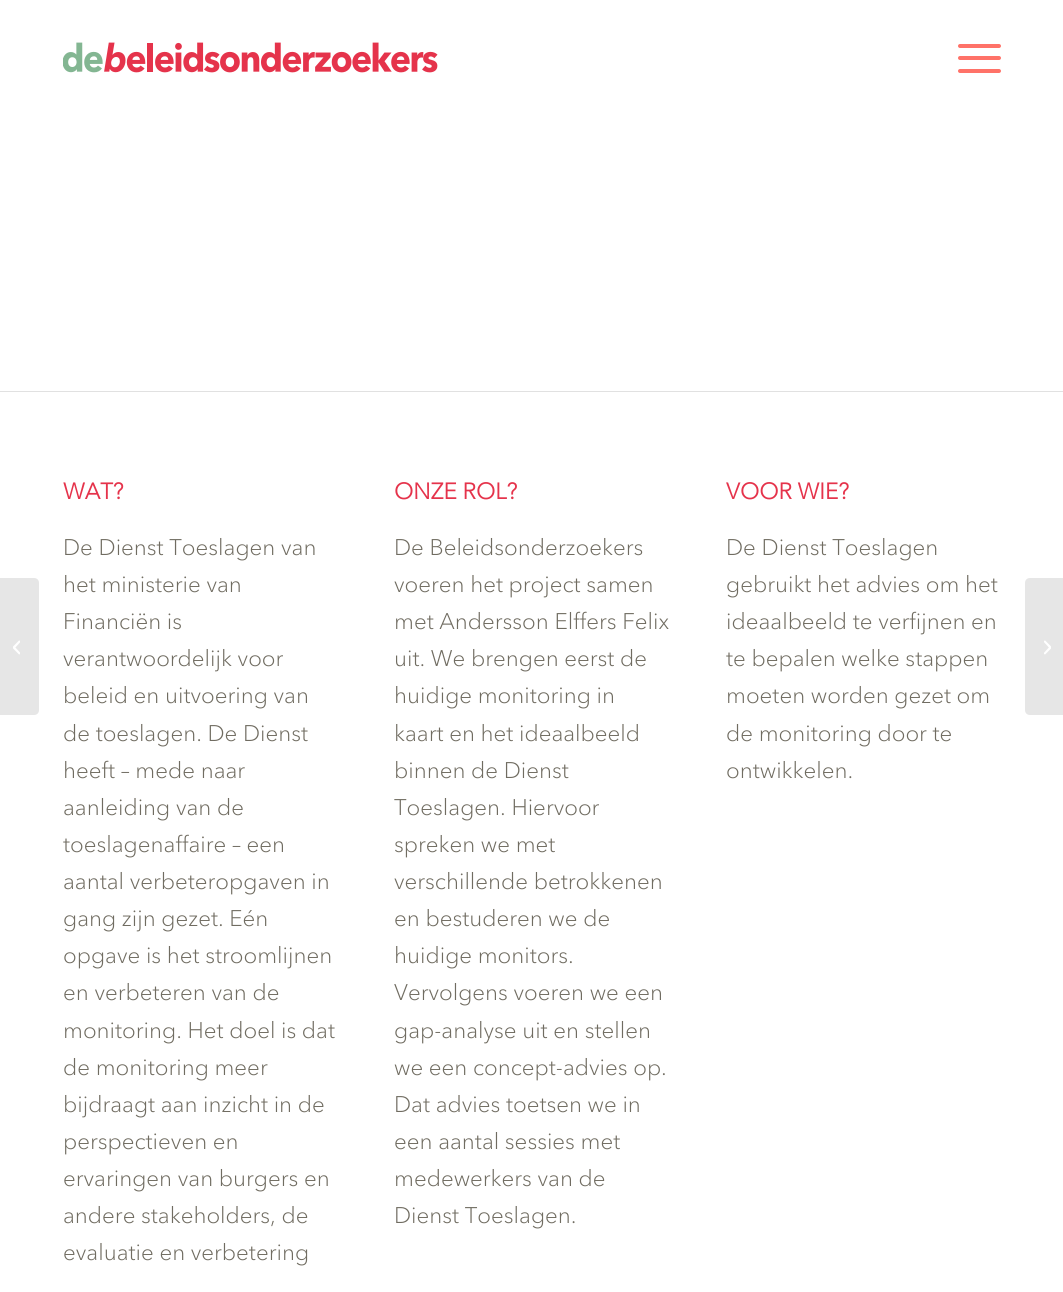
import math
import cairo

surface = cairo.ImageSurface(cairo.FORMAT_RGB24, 1063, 1292)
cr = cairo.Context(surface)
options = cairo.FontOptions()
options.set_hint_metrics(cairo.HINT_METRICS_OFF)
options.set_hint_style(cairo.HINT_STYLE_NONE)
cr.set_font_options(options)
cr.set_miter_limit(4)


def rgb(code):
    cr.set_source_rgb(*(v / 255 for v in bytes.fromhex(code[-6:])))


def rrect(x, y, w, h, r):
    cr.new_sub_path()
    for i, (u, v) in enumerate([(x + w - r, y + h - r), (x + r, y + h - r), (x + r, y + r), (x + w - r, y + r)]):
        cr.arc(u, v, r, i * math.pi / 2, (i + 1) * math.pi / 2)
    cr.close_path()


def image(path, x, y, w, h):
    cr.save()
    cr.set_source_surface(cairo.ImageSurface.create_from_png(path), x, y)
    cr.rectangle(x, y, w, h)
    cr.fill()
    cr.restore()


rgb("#ffffff")
cr.paint()
image("img/1.png", 63, 42, 375, 31)
rgb("#ff7268")
rrect(958, 56, 43, 4, 2)
cr.fill()
rrect(958, 44, 43, 4, 2)
cr.fill()
rrect(958, 69, 43, 4, 2)
cr.fill()
rgb("#e6e6e6")
cr.new_path()
cr.move_to(0, 578)
cr.line_to(34, 578)
cr.curve_to(37, 578, 39, 580, 39, 583)
cr.line_to(39, 710)
cr.curve_to(39, 713, 37, 715, 34, 715)
cr.line_to(0, 715)
cr.close_path()
cr.fill()
image("img/2.png", 13, 640, 7, 15)
rgb("#e1e1e1")
cr.rectangle(0, 391, 1063, 1)
cr.fill()
rgb("#e6e6e6")
cr.new_path()
cr.move_to(1030, 578)
cr.line_to(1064, 578)
cr.line_to(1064, 715)
cr.line_to(1030, 715)
cr.curve_to(1027, 715, 1025, 713, 1025, 710)
cr.line_to(1025, 583)
cr.curve_to(1025, 580, 1027, 578, 1030, 578)
cr.close_path()
cr.fill()
image("img/3.png", 1044, 640, 7, 15)
cr.select_font_face("Avenir Next", cairo.FONT_SLANT_NORMAL, cairo.FONT_WEIGHT_BOLD)
cr.set_font_size(22.5)
rgb("#e5334b")
cr.move_to(63, 499)
cr.show_text("WAT?")
cr.select_font_face("Avenir Next Light")
rgb("#706c61")
for x, y, s in [
    (63, 555, "De Dienst Toeslagen van"),
    (63, 592, "het ministerie van"),
    (63, 629, "Financiën is"),
    (63, 666, "verantwoordelijk voor"),
    (63, 703, "beleid en uitvoering van"),
    (63, 741, "de toeslagen. De Dienst"),
    (63, 778, "heeft – mede naar"),
    (63, 815, "aanleiding van de"),
    (63, 852, "toeslagenaffaire – een"),
    (63, 889, "aantal verbeteropgaven in"),
    (63, 926, "gang zijn gezet. Eén"),
    (63, 963, "opgave is het stroomlijnen"),
    (63, 1000, "en verbeteren van de"),
    (63, 1038, "monitoring. Het doel is dat"),
    (63, 1075, "de monitoring meer"),
    (63, 1112, "bijdraagt aan inzicht in de"),
    (63, 1149, "perspectieven en"),
    (63, 1186, "ervaringen van burgers en"),
    (63, 1223, "andere stakeholders, de"),
    (63, 1260, "evaluatie en verbetering"),
]:
    cr.move_to(x, y)
    cr.show_text(s)
cr.select_font_face("Avenir Next", cairo.FONT_SLANT_NORMAL, cairo.FONT_WEIGHT_BOLD)
rgb("#e5334b")
cr.move_to(394, 499)
cr.show_text("ONZE ROL?")
cr.select_font_face("Avenir Next Light")
rgb("#706c61")
for x, y, s in [
    (394, 555, "De Beleidsonderzoekers"),
    (394, 592, "voeren het project samen"),
    (394, 629, "met Andersson Elffers Felix"),
    (394, 666, "uit. We brengen eerst de"),
    (394, 703, "huidige monitoring in"),
    (394, 741, "kaart en het ideaalbeeld"),
    (394, 778, "binnen de Dienst"),
    (394, 815, "Toeslagen. Hiervoor"),
    (394, 852, "spreken we met"),
    (394, 889, "verschillende betrokkenen"),
    (394, 926, "en bestuderen we de"),
    (394, 963, "huidige monitors."),
    (394, 1000, "Vervolgens voeren we een"),
    (394, 1038, "gap-analyse uit en stellen"),
    (394, 1075, "we een concept-advies op."),
    (394, 1112, "Dat advies toetsen we in"),
    (394, 1149, "een aantal sessies met"),
    (394, 1186, "medewerkers van de"),
    (394, 1223, "Dienst Toeslagen."),
]:
    cr.move_to(x, y)
    cr.show_text(s)
cr.select_font_face("Avenir Next", cairo.FONT_SLANT_NORMAL, cairo.FONT_WEIGHT_BOLD)
rgb("#e5334b")
cr.move_to(726, 499)
cr.show_text("VOOR WIE?")
cr.select_font_face("Avenir Next Light")
rgb("#706c61")
for x, y, s in [
    (726, 555, "De Dienst Toeslagen"),
    (726, 592, "gebruikt het advies om het"),
    (726, 629, "ideaalbeeld te verfijnen en"),
    (726, 666, "te bepalen welke stappen"),
    (726, 703, "moeten worden gezet om"),
    (726, 741, "de monitoring door te"),
    (726, 778, "ontwikkelen."),
]:
    cr.move_to(x, y)
    cr.show_text(s)
surface.write_to_png("page.png")
